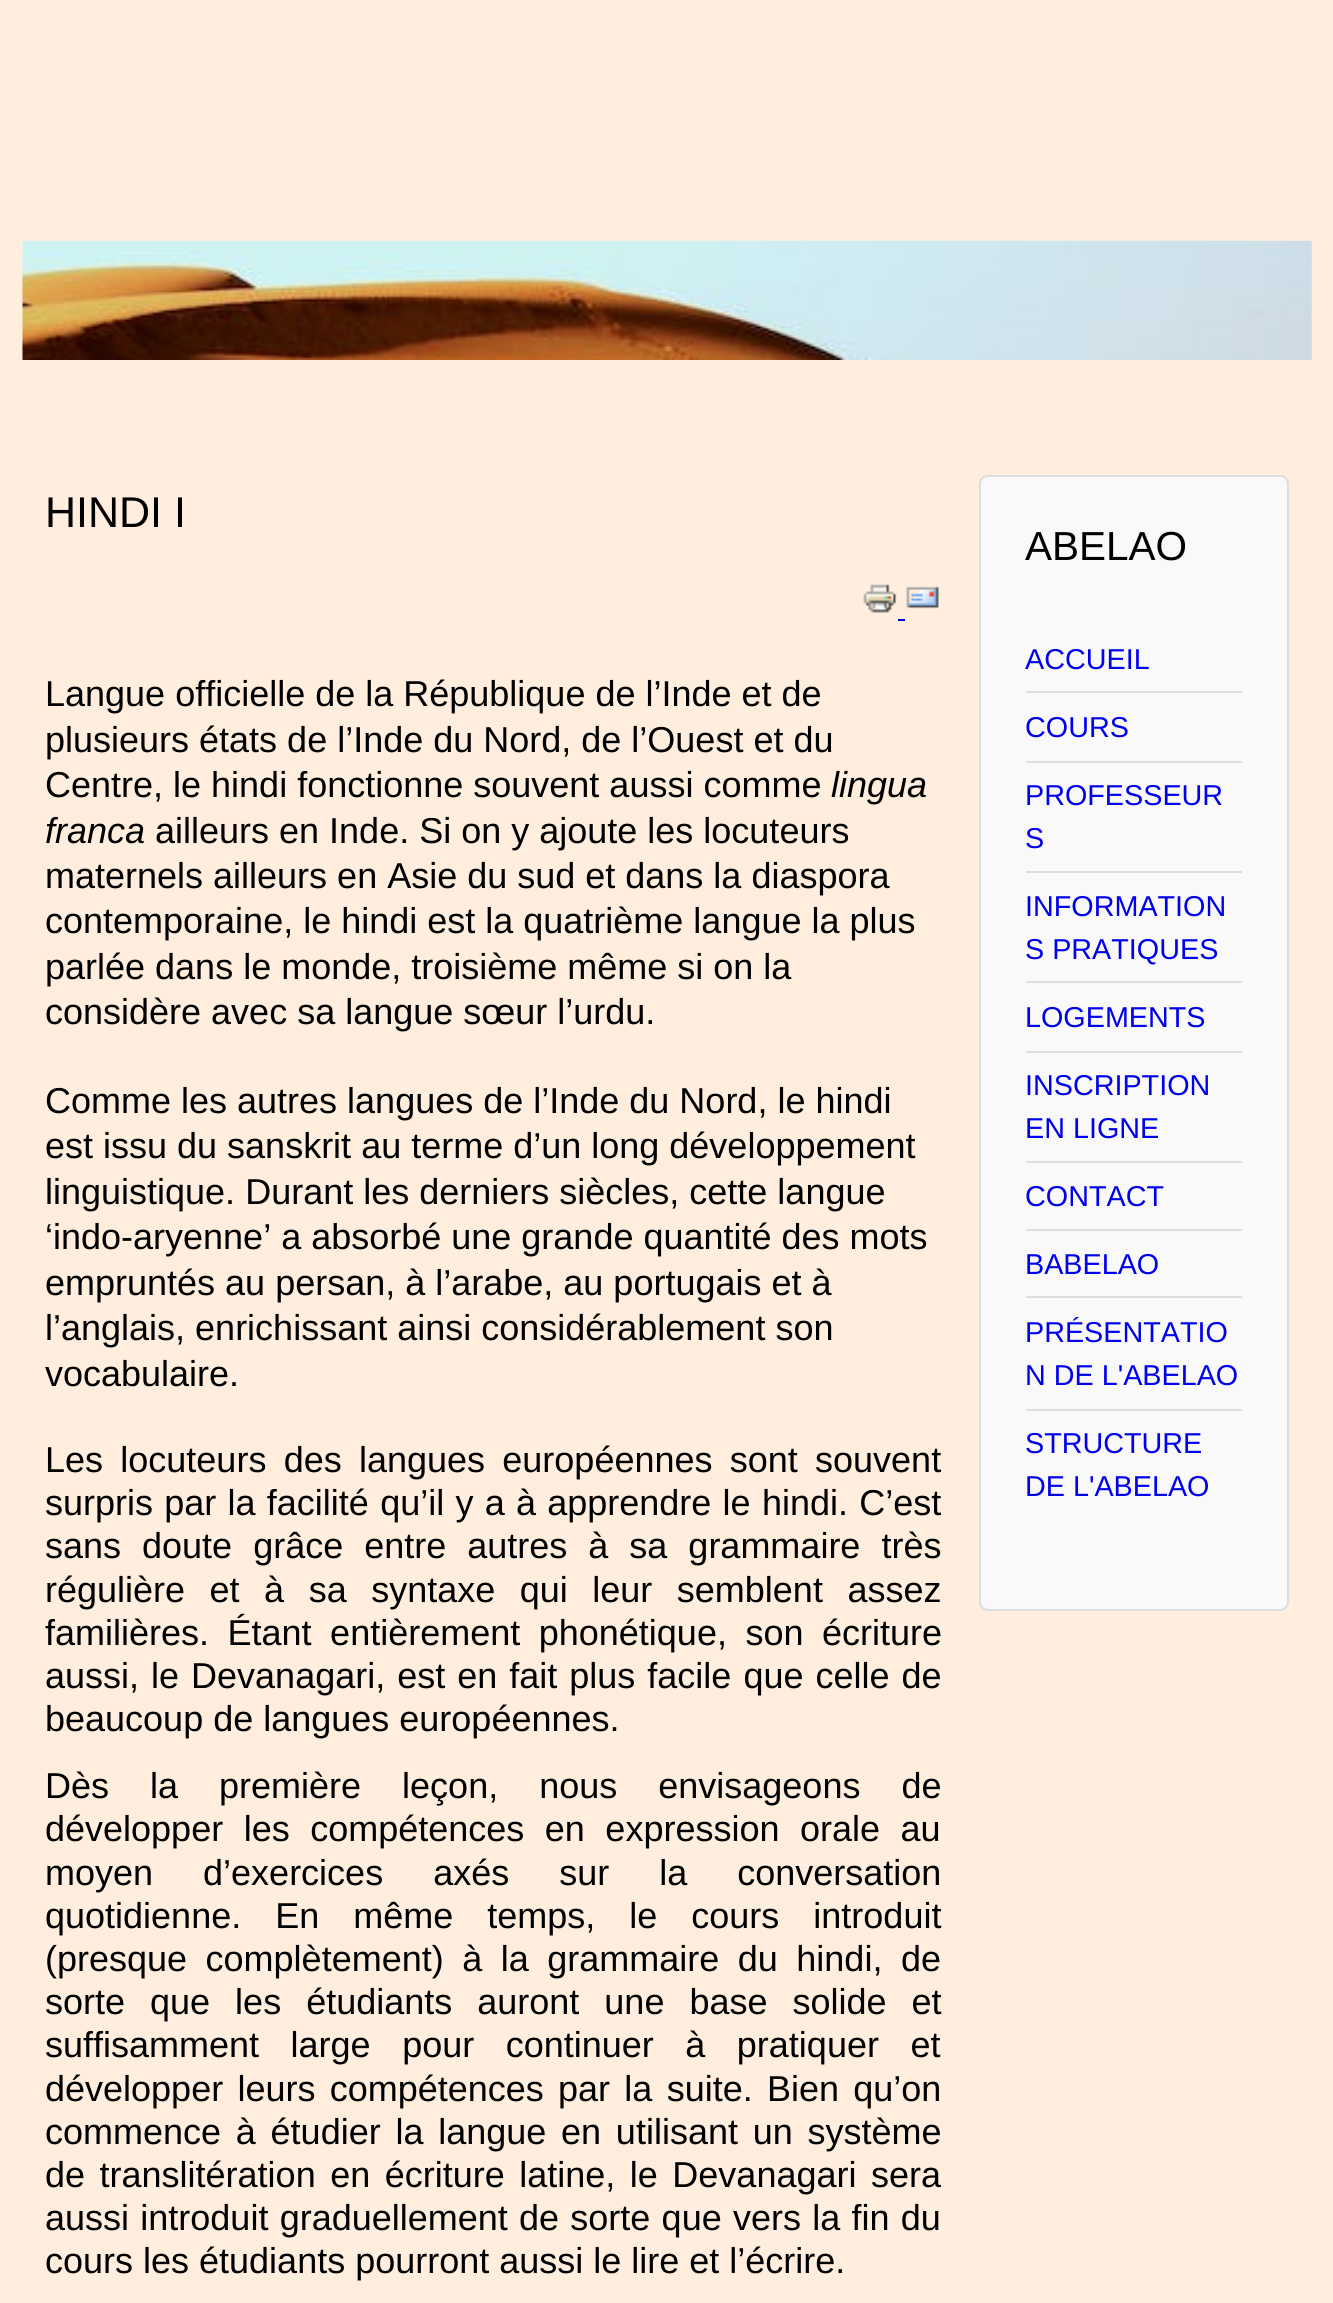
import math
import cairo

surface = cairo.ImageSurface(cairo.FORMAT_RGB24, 1333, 2303)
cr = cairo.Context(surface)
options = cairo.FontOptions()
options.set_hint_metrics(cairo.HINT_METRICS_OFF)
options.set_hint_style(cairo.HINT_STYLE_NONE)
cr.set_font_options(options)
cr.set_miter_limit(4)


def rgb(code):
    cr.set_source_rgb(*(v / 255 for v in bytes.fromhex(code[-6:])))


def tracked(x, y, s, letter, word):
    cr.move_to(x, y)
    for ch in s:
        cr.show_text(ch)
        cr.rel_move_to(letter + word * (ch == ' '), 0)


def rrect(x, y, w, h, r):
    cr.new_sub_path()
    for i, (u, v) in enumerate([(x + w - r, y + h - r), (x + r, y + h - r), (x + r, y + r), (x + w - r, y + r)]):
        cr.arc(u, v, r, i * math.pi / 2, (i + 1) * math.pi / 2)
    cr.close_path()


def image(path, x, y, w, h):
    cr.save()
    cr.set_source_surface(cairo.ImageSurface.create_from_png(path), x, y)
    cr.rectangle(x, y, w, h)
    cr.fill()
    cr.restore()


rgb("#ffeedd")
cr.paint()
image("img/1.png", 22, 240, 1290, 120)
image("img/2.png", 863, 584, 34, 29)
image("img/3.png", 906, 586, 33, 23)
rgb("#0000ee")
cr.rectangle(898, 619, 7, 2)
cr.fill()
rgb("#f9f9f9")
rrect(980, 476, 308, 1134, 8)
cr.fill_preserve()
rgb("#dddddd")
cr.stroke()
for x, y, w, h, color in [
    (1026, 691, 216, 2, "#dddddd"),
    (1026, 761, 216, 2, "#dddddd"),
    (1026, 871, 216, 2, "#dddddd"),
    (1026, 981, 216, 2, "#dddddd"),
    (1026, 1051, 216, 2, "#dddddd"),
    (1026, 1161, 216, 2, "#dddddd"),
    (1026, 1229, 216, 2, "#dddddd"),
    (1026, 1296, 216, 2, "#dddddd"),
    (1026, 1409, 216, 2, "#dddddd"),
]:
    rgb(color)
    cr.rectangle(x, y, w, h)
    cr.fill()
cr.select_font_face("Liberation Sans")
cr.set_font_size(43)
rgb("#000000")
cr.move_to(45, 527)
cr.show_text("HINDI I")
cr.set_font_size(36)
for x, y, s in [
    (45, 706, "Langue officielle de la République de l’Inde et de"),
    (45, 752, "plusieurs états de l’Inde du Nord, de l’Ouest et du"),
    (45, 797, "Centre, le hindi fonctionne souvent aussi comme"),
]:
    cr.move_to(x, y)
    cr.show_text(s)
cr.select_font_face("Liberation Sans", cairo.FONT_SLANT_ITALIC)
cr.move_to(831, 797)
cr.show_text("lingua")
cr.move_to(45, 843)
cr.show_text("franca")
cr.select_font_face("Liberation Sans")
for x, y, s in [
    (155, 843, "ailleurs en Inde. Si on y ajoute les locuteurs"),
    (45, 888, "maternels ailleurs en Asie du sud et dans la diaspora"),
    (45, 933, "contemporaine, le hindi est la quatrième langue la plus"),
    (45, 979, "parlée dans le monde, troisième même si on la"),
    (45, 1024, "considère avec sa langue sœur l’urdu."),
    (45, 1113, "Comme les autres langues de l’Inde du Nord, le hindi"),
    (45, 1158, "est issu du sanskrit au terme d’un long développement"),
    (45, 1204, "linguistique. Durant les derniers siècles, cette langue"),
    (45, 1249, "‘indo-aryenne’ a absorbé une grande quantité des mots"),
    (45, 1295, "empruntés au persan, à l’arabe, au portugais et à"),
    (45, 1340, "l’anglais, enrichissant ainsi considérablement son"),
    (45, 1386, "vocabulaire."),
]:
    cr.move_to(x, y)
    cr.show_text(s)
tracked(45, 1472, "Les locuteurs des langues européennes sont souvent", 0, 7.25)
tracked(45, 1515, "surpris par la facilité qu’il y a à apprendre le hindi. C’est", 0, 1.25)
tracked(45, 1558, "sans doute grâce entre autres à sa grammaire très", 0, 11)
tracked(45, 1602, "régulière et à sa syntaxe qui leur semblent assez", 0, 14.5)
tracked(45, 1645, "familières. Étant entièrement phonétique, son écriture", 0, 8.5)
tracked(45, 1688, "aussi, le Devanagari, est en fait plus facile que celle de", 0, 2)
cr.move_to(45, 1731)
cr.show_text("beaucoup de langues européennes.")
tracked(45, 1798, "Dès la première leçon, nous envisageons de", 0, 31)
tracked(45, 1841, "développer les compétences en expression orale au", 0, 10.5)
tracked(45, 1885, "moyen d’exercices axés sur la conversation", 0, 40)
tracked(45, 1928, "quotidienne. En même temps, le cours introduit", 0, 24)
tracked(45, 1971, "(presque complètement) à la grammaire du hindi, de", 0, 8.5)
tracked(45, 2014, "sorte que les étudiants auront une base solide et", 0, 15)
tracked(45, 2057, "suffisamment large pour continuer à pratiquer et", 0, 21.5)
tracked(45, 2101, "développer leurs compétences par la suite. Bien qu’on", 0, 4.25)
tracked(45, 2144, "commence à étudier la langue en utilisant un système", 0, 4.75)
tracked(45, 2187, "de translitération en écriture latine, le Devanagari sera", 0, 4.5)
tracked(45, 2230, "aussi introduit graduellement de sorte que vers la fin du", 0, 1.25)
cr.move_to(45, 2273)
cr.show_text("cours les étudiants pourront aussi le lire et l’écrire.")
cr.set_font_size(40.5)
cr.move_to(1025, 560)
cr.show_text("ABELAO")
cr.set_font_size(28.75)
rgb("#0000ee")
for x, y, s in [
    (1025, 669, "ACCUEIL"),
    (1025, 737, "COURS"),
    (1025, 805, "PROFESSEUR"),
    (1025, 848, "S"),
    (1025, 916, "INFORMATION"),
    (1025, 959, "S PRATIQUES"),
    (1025, 1027, "LOGEMENTS"),
    (1025, 1095, "INSCRIPTION"),
    (1025, 1138, "EN LIGNE"),
    (1025, 1206, "CONTACT"),
    (1025, 1274, "BABELAO"),
    (1025, 1342, "PRÉSENTATIO"),
    (1025, 1385, "N DE L'ABELAO"),
    (1025, 1453, "STRUCTURE"),
    (1025, 1496, "DE L'ABELAO"),
]:
    cr.move_to(x, y)
    cr.show_text(s)
surface.write_to_png("page.png")
